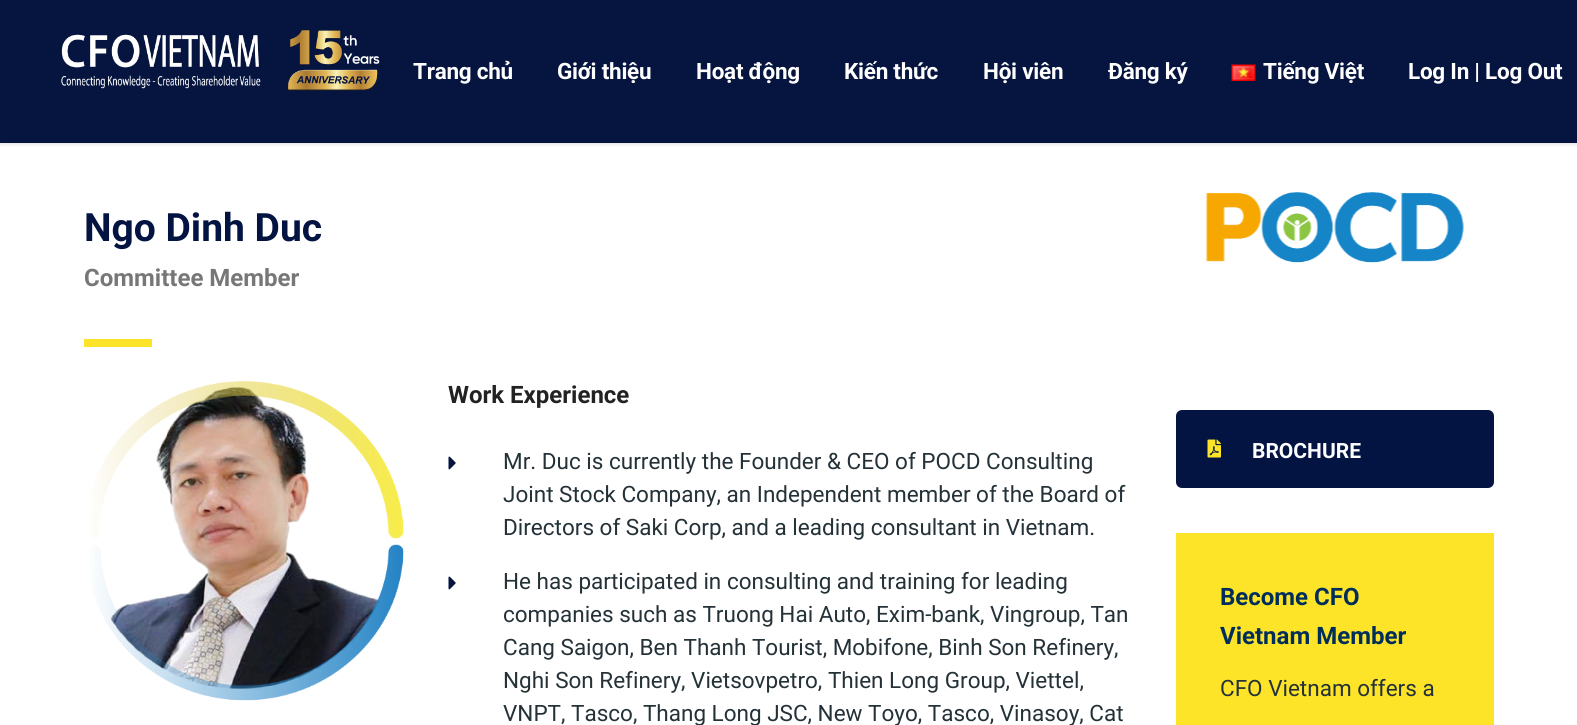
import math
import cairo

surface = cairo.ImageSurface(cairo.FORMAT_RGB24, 1577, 725)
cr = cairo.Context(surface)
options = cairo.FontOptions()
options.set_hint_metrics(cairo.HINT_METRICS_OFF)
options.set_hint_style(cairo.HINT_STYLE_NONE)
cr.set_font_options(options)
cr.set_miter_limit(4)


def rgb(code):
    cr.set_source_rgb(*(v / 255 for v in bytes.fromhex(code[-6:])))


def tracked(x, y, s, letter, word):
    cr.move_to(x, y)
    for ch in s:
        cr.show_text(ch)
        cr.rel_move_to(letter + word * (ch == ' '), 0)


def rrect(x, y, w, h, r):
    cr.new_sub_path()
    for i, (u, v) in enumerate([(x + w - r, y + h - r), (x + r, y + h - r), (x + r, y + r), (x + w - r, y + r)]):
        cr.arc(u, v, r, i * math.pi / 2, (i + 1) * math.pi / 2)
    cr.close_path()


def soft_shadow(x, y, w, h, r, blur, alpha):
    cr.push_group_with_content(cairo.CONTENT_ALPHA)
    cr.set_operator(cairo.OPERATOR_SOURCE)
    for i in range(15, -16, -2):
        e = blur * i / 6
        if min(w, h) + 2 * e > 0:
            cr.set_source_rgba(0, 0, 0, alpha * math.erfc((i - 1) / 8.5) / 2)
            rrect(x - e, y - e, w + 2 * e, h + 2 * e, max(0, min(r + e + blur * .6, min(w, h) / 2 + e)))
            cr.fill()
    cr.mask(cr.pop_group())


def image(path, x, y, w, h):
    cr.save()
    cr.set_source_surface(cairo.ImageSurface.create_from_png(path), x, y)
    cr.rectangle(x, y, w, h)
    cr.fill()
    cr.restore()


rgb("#ffffff")
cr.paint()
rgb("#000000")
soft_shadow(0, 2, 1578, 142, 0, 2, 0.15)
rgb("#06153f")
cr.rectangle(0, 0, 1577, 143)
cr.fill()
image("img/1.png", 61, 30, 319, 61)
image("img/2.png", 1231, 64, 25, 17)
rgb("#fde428")
cr.rectangle(84, 339, 68, 8)
cr.fill()
image("img/3.png", 90, 381, 314, 320)
image("img/4.png", 448, 456, 8, 14)
image("img/4.png", 448, 576, 8, 14)
image("img/5.png", 1206, 192, 258, 71)
rgb("#031442")
rrect(1177, 411, 316, 76, 5)
cr.fill_preserve()
cr.stroke()
image("img/6.png", 1207, 439, 14, 19)
rgb("#fde428")
cr.rectangle(1176, 533, 318, 192)
cr.fill()
cr.select_font_face("Roboto", cairo.FONT_SLANT_NORMAL, cairo.FONT_WEIGHT_BOLD)
cr.set_font_size(22.5)
rgb("#ffffff")
for x, y, s in [
    (413, 79, "Trang chủ"),
    (557, 79, "Giới thiệu"),
    (696, 79, "Hoạt động"),
    (844, 79, "Kiến thức"),
    (983, 79, "Hội viên"),
    (1108, 79, "Đăng ký"),
    (1263, 79, "Tiếng Việt"),
    (1408, 79, "Log In | Log Out"),
]:
    tracked(x, y, s, -0.25, 0)
cr.set_font_size(39)
rgb("#031442")
cr.move_to(84, 241)
cr.show_text("Ngo Dinh Duc")
cr.set_font_size(24)
rgb("#777777")
cr.move_to(84, 286)
cr.show_text("Committee Member")
rgb("#222222")
cr.move_to(448, 403)
cr.show_text("Work Experience")
cr.select_font_face("Roboto")
cr.set_font_size(22.5)
rgb("#243238")
for x, y, s in [
    (503, 469, "Mr. Duc is currently the Founder & CEO of POCD Consulting"),
    (503, 502, "Joint Stock Company, an Independent member of the Board of"),
    (503, 535, "Directors of Saki Corp, and a leading consultant in Vietnam."),
    (503, 589, "He has participated in consulting and training for leading"),
    (503, 622, "companies such as Truong Hai Auto, Exim-bank, Vingroup, Tan"),
    (503, 655, "Cang Saigon, Ben Thanh Tourist, Mobifone, Binh Son Refinery,"),
    (503, 688, "Nghi Son Refinery, Vietsovpetro, Thien Long Group, Viettel,"),
    (503, 721, "VNPT, Tasco, Thang Long JSC, New Toyo, Tasco, Vinasoy, Cat"),
]:
    cr.move_to(x, y)
    cr.show_text(s)
cr.select_font_face("Roboto", cairo.FONT_SLANT_NORMAL, cairo.FONT_WEIGHT_BOLD)
cr.set_font_size(21)
rgb("#ffffff")
cr.move_to(1252, 458)
cr.show_text("BROCHURE")
cr.set_font_size(24)
rgb("#002e5b")
cr.move_to(1220, 605)
cr.show_text("Become CFO")
cr.move_to(1220, 644)
cr.show_text("Vietnam Member")
cr.select_font_face("Roboto")
cr.set_font_size(22.5)
rgb("#243238")
cr.move_to(1220, 696)
cr.show_text("CFO Vietnam offers a")
surface.write_to_png("page.png")
